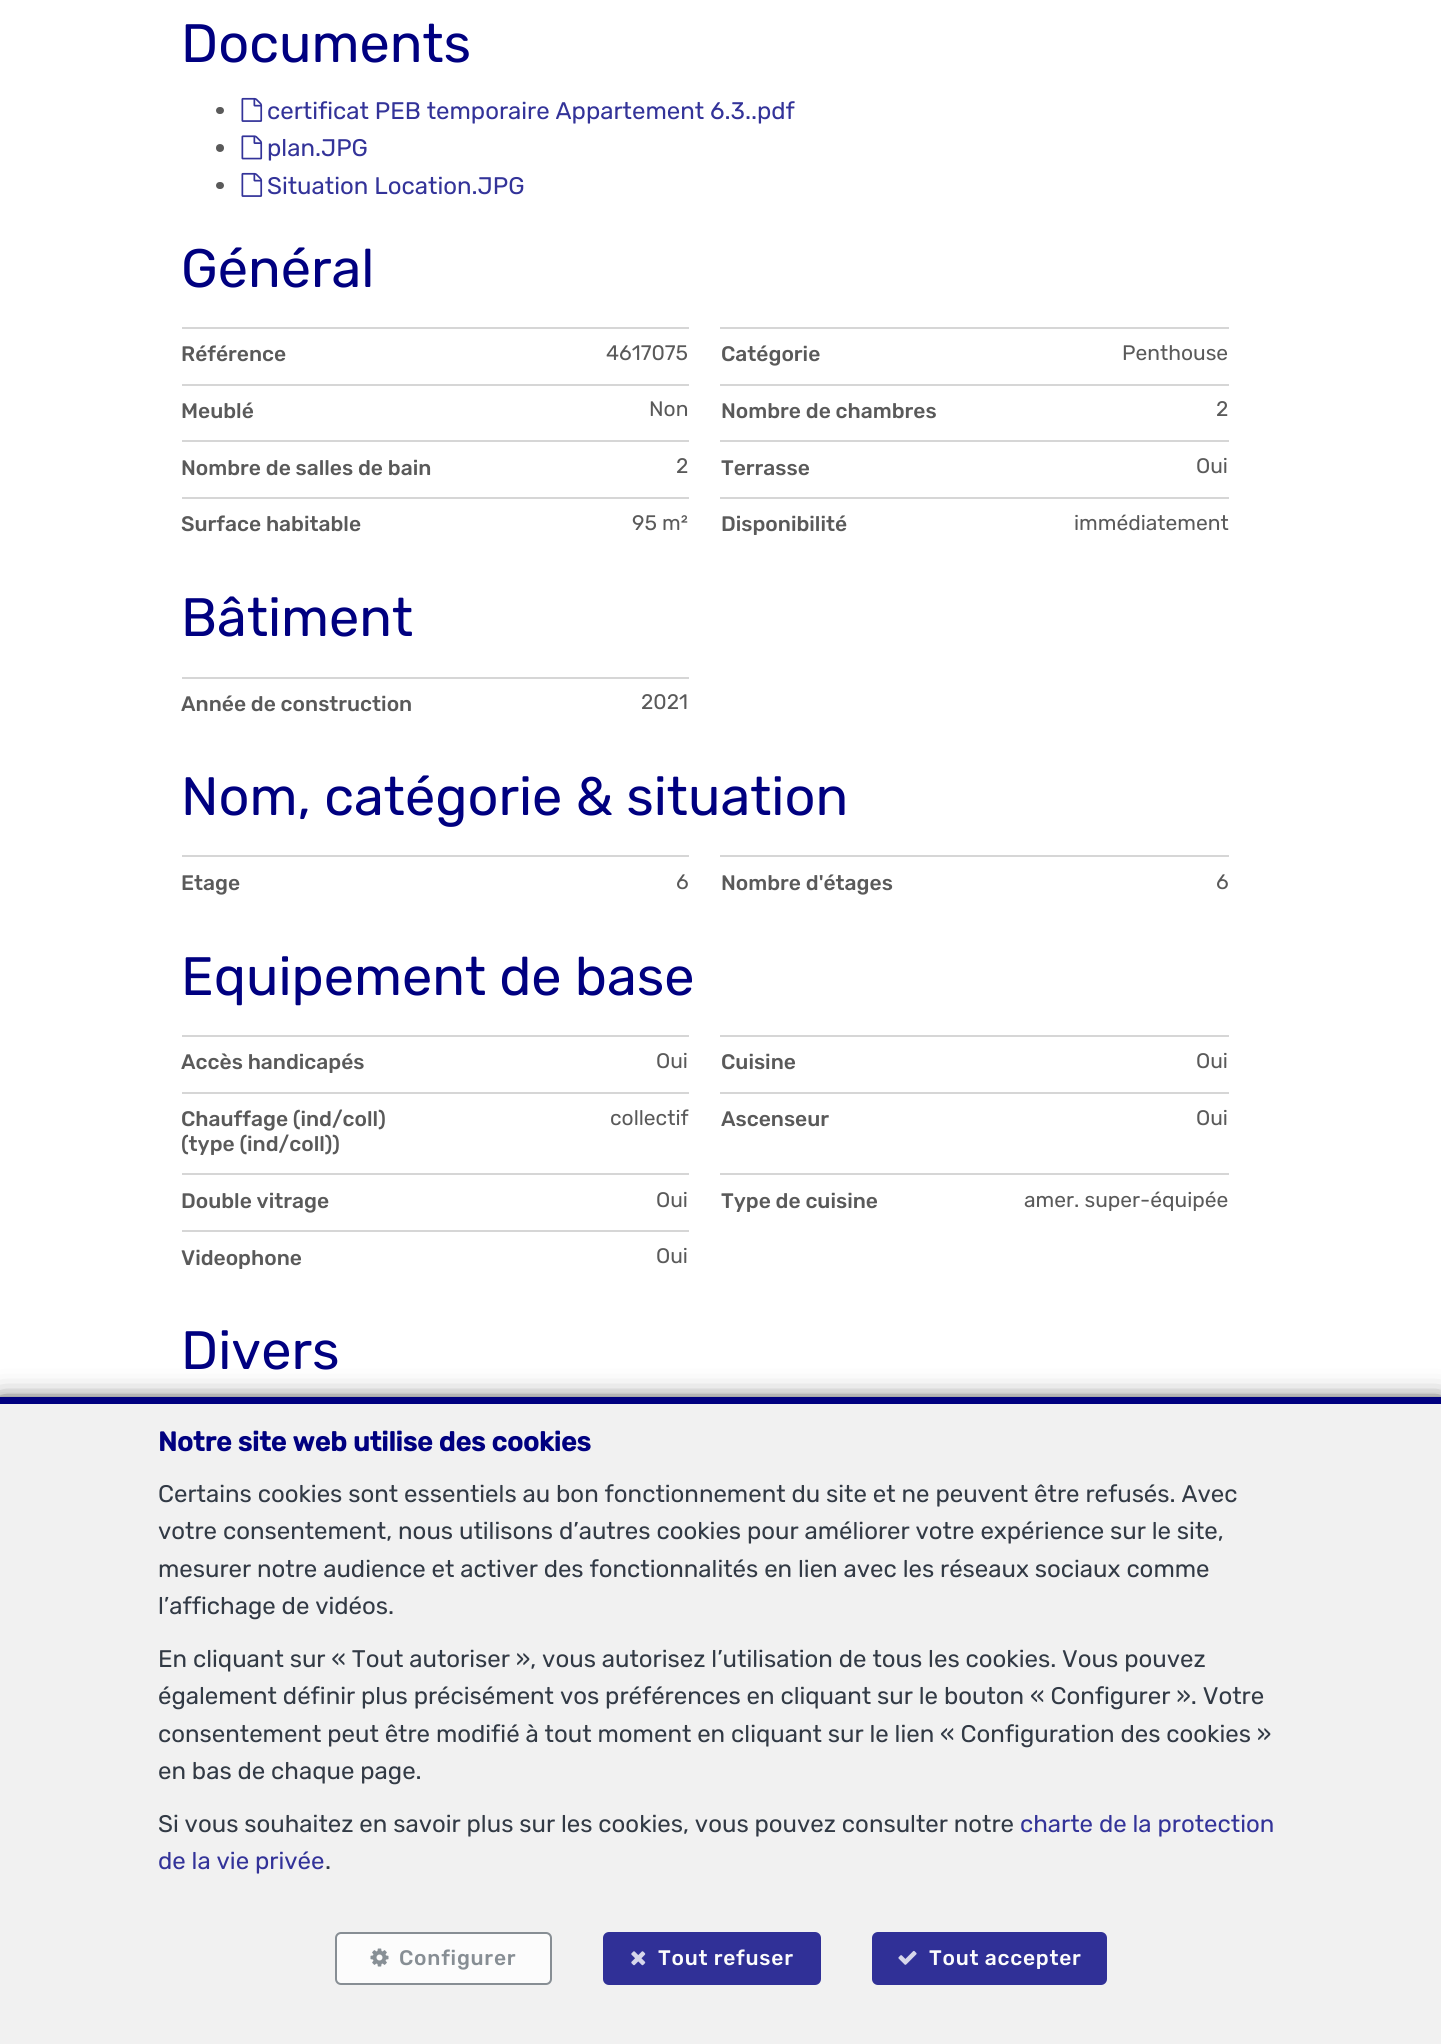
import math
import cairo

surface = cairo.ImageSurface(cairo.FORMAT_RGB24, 1441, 2044)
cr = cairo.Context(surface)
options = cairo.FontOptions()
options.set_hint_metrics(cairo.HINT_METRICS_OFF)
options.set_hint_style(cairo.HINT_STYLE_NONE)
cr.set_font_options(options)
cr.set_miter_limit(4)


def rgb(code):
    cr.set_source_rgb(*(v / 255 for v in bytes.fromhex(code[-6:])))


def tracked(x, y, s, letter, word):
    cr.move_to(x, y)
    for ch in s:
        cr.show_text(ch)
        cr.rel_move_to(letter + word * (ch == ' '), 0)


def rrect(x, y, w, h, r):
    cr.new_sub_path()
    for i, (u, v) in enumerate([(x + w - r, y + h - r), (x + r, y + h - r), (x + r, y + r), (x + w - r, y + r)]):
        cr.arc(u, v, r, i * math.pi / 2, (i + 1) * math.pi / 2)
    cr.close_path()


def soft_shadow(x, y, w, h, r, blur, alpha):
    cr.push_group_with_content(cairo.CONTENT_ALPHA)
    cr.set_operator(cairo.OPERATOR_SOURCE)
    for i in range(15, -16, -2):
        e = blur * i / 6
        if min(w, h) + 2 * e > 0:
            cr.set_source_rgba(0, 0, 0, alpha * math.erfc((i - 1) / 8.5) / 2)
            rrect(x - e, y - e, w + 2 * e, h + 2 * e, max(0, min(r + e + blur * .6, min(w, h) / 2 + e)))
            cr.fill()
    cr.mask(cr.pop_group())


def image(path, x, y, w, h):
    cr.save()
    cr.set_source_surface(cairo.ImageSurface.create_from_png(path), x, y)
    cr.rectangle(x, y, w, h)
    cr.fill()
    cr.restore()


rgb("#ffffff")
cr.paint()
rgb("#5a5a5a")
rrect(216, 107, 8, 7, 3.5)
cr.fill()
image("img/1.png", 241, 97, 22, 25)
cr.arc(220, 148, 4, 0, 2 * math.pi)
cr.fill()
image("img/2.png", 241, 135, 22, 25)
rrect(216, 182, 8, 7, 3.5)
cr.fill()
image("img/1.png", 241, 172, 22, 25)
for x, y, w, h, color in [
    (182, 327, 507, 2, "#d6d6d6"),
    (720, 327, 509, 2, "#d6d6d6"),
    (182, 384, 507, 2, "#d6d6d6"),
    (720, 384, 509, 2, "#d6d6d6"),
    (182, 440, 507, 2, "#d6d6d6"),
    (720, 440, 509, 2, "#d6d6d6"),
    (182, 497, 507, 2, "#d6d6d6"),
    (720, 497, 509, 2, "#d6d6d6"),
    (182, 677, 507, 2, "#d6d6d6"),
    (182, 855, 507, 2, "#d6d6d6"),
    (720, 855, 509, 2, "#d6d6d6"),
    (182, 1035, 507, 2, "#d6d6d6"),
    (720, 1035, 509, 2, "#d6d6d6"),
    (182, 1092, 507, 2, "#d6d6d6"),
    (720, 1092, 509, 2, "#d6d6d6"),
    (182, 1173, 507, 2, "#d6d6d6"),
    (720, 1173, 509, 2, "#d6d6d6"),
    (182, 1230, 507, 2, "#d6d6d6"),
]:
    rgb(color)
    cr.rectangle(x, y, w, h)
    cr.fill()
rgb("#000000")
soft_shadow(0, 1406, 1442, 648, 0, 15, 0.9)
soft_shadow(0, 1403, 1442, 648, 0, 6, 0.9)
rgb("#f1f1f1")
cr.rectangle(0, 1404, 1441, 640)
cr.fill()
rgb("#000080")
cr.rectangle(0, 1397, 1441, 7)
cr.fill()
rgb("#fcfcfc")
rrect(336, 1933, 215, 51, 5)
cr.fill_preserve()
rgb("#878e94")
cr.stroke()
image("img/3.png", 370, 1948, 19, 19)
rgb("#303097")
rrect(603, 1932, 218, 53, 6)
cr.fill()
image("img/4.png", 631, 1951, 15, 15)
rrect(872, 1932, 235, 53, 6)
cr.fill()
image("img/5.png", 898, 1950, 19, 15)
cr.select_font_face("Rubik")
cr.set_font_size(54)
rgb("#000080")
cr.move_to(181, 62)
cr.show_text("Documents")
cr.set_font_size(24)
rgb("#333399")
for x, y, s in [
    (267, 119, "certificat PEB temporaire Appartement 6.3..pdf"),
    (267, 156, "plan.JPG"),
    (267, 194, "Situation Location.JPG"),
]:
    cr.move_to(x, y)
    cr.show_text(s)
cr.set_font_size(54)
rgb("#000080")
cr.move_to(181, 287)
cr.show_text("Général")
cr.select_font_face("Rubik Medium")
cr.set_font_size(21)
rgb("#5a5a5a")
cr.move_to(181, 361)
cr.show_text("Référence")
cr.select_font_face("Rubik")
cr.move_to(606, 360)
cr.show_text("4617075")
cr.select_font_face("Rubik Medium")
cr.move_to(721, 361)
cr.show_text("Catégorie")
cr.select_font_face("Rubik")
cr.move_to(1122, 360)
cr.show_text("Penthouse")
cr.select_font_face("Rubik Medium")
cr.move_to(181, 418)
cr.show_text("Meublé")
cr.select_font_face("Rubik")
cr.move_to(649, 416)
cr.show_text("Non")
cr.select_font_face("Rubik Medium")
cr.move_to(721, 418)
cr.show_text("Nombre de chambres")
cr.select_font_face("Rubik")
cr.move_to(1216, 416)
cr.show_text("2")
cr.select_font_face("Rubik Medium")
cr.move_to(181, 475)
cr.show_text("Nombre de salles de bain")
cr.select_font_face("Rubik")
cr.move_to(676, 473)
cr.show_text("2")
cr.select_font_face("Rubik Medium")
cr.move_to(721, 475)
cr.show_text("Terrasse")
cr.select_font_face("Rubik")
cr.move_to(1196, 473)
cr.show_text("Oui")
cr.select_font_face("Rubik Medium")
cr.move_to(181, 531)
cr.show_text("Surface habitable")
cr.select_font_face("Rubik")
cr.move_to(632, 530)
cr.show_text("95 m²")
cr.select_font_face("Rubik Medium")
cr.move_to(721, 531)
cr.show_text("Disponibilité")
cr.select_font_face("Rubik")
cr.move_to(1074, 530)
cr.show_text("immédiatement")
cr.set_font_size(54)
rgb("#000080")
cr.move_to(181, 636)
cr.show_text("Bâtiment")
cr.select_font_face("Rubik Medium")
cr.set_font_size(21)
rgb("#5a5a5a")
cr.move_to(181, 711)
cr.show_text("Année de construction")
cr.select_font_face("Rubik")
cr.move_to(641, 709)
cr.show_text("2021")
cr.set_font_size(54)
rgb("#000080")
cr.move_to(181, 815)
cr.show_text("Nom, catégorie & situation")
cr.select_font_face("Rubik Medium")
cr.set_font_size(21)
rgb("#5a5a5a")
cr.move_to(181, 890)
cr.show_text("Etage")
cr.select_font_face("Rubik")
cr.move_to(676, 889)
cr.show_text("6")
cr.select_font_face("Rubik Medium")
cr.move_to(721, 890)
cr.show_text("Nombre d'étages")
cr.select_font_face("Rubik")
cr.move_to(1216, 889)
cr.show_text("6")
cr.set_font_size(54)
rgb("#000080")
cr.move_to(181, 995)
cr.show_text("Equipement de base")
cr.select_font_face("Rubik Medium")
cr.set_font_size(21)
rgb("#5a5a5a")
cr.move_to(181, 1069)
cr.show_text("Accès handicapés")
cr.select_font_face("Rubik")
cr.move_to(656, 1068)
cr.show_text("Oui")
cr.select_font_face("Rubik Medium")
cr.move_to(721, 1069)
cr.show_text("Cuisine")
cr.select_font_face("Rubik")
cr.move_to(1196, 1068)
cr.show_text("Oui")
cr.select_font_face("Rubik Medium")
cr.move_to(181, 1126)
cr.show_text("Chauffage (ind/coll)")
cr.move_to(181, 1151)
cr.show_text("(type (ind/coll))")
cr.select_font_face("Rubik")
cr.move_to(610, 1125)
cr.show_text("collectif")
cr.select_font_face("Rubik Medium")
cr.move_to(721, 1126)
cr.show_text("Ascenseur")
cr.select_font_face("Rubik")
cr.move_to(1196, 1125)
cr.show_text("Oui")
cr.select_font_face("Rubik Medium")
cr.move_to(181, 1208)
cr.show_text("Double vitrage")
cr.select_font_face("Rubik")
cr.move_to(656, 1207)
cr.show_text("Oui")
cr.select_font_face("Rubik Medium")
cr.move_to(721, 1208)
cr.show_text("Type de cuisine")
cr.select_font_face("Rubik")
cr.move_to(1024, 1207)
cr.show_text("amer. super-équipée")
cr.select_font_face("Rubik Medium")
cr.move_to(181, 1265)
cr.show_text("Videophone")
cr.select_font_face("Rubik")
cr.move_to(656, 1263)
cr.show_text("Oui")
cr.set_font_size(54)
rgb("#000080")
cr.move_to(181, 1369)
cr.show_text("Divers")
cr.select_font_face("Rubik", cairo.FONT_SLANT_NORMAL, cairo.FONT_WEIGHT_BOLD)
cr.set_font_size(27)
cr.move_to(158, 1451)
cr.show_text("Notre site web utilise des cookies")
cr.select_font_face("Rubik")
cr.set_font_size(24)
rgb("#323a45")
for x, y, s in [
    (158, 1502, "Certains cookies sont essentiels au bon fonctionnement du site et ne peuvent être refusés. Avec"),
    (158, 1539, "votre consentement, nous utilisons d’autres cookies pour améliorer votre expérience sur le site,"),
    (158, 1577, "mesurer notre audience et activer des fonctionnalités en lien avec les réseaux sociaux comme"),
    (158, 1614, "l’affichage de vidéos."),
    (158, 1667, "En cliquant sur « Tout autoriser », vous autorisez l’utilisation de tous les cookies. Vous pouvez"),
    (158, 1704, "également définir plus précisément vos préférences en cliquant sur le bouton « Configurer ». Votre"),
    (158, 1742, "consentement peut être modifié à tout moment en cliquant sur le lien « Configuration des cookies »"),
    (158, 1779, "en bas de chaque page."),
    (158, 1832, "Si vous souhaitez en savoir plus sur les cookies, vous pouvez consulter notre"),
]:
    cr.move_to(x, y)
    cr.show_text(s)
rgb("#333399")
cr.move_to(1020, 1832)
cr.show_text("charte de la protection")
cr.move_to(158, 1869)
cr.show_text("de la vie privée")
rgb("#323a45")
cr.move_to(325, 1869)
cr.show_text(".")
cr.select_font_face("Rubik Medium")
cr.set_font_size(21)
rgb("#878e94")
tracked(399, 1965, "Configurer", 0.75, 0)
rgb("#fcfcfc")
tracked(658, 1965, "Tout refuser", 0.75, 0)
tracked(929, 1965, "Tout accepter", 0.75, 0)
surface.write_to_png("page.png")
